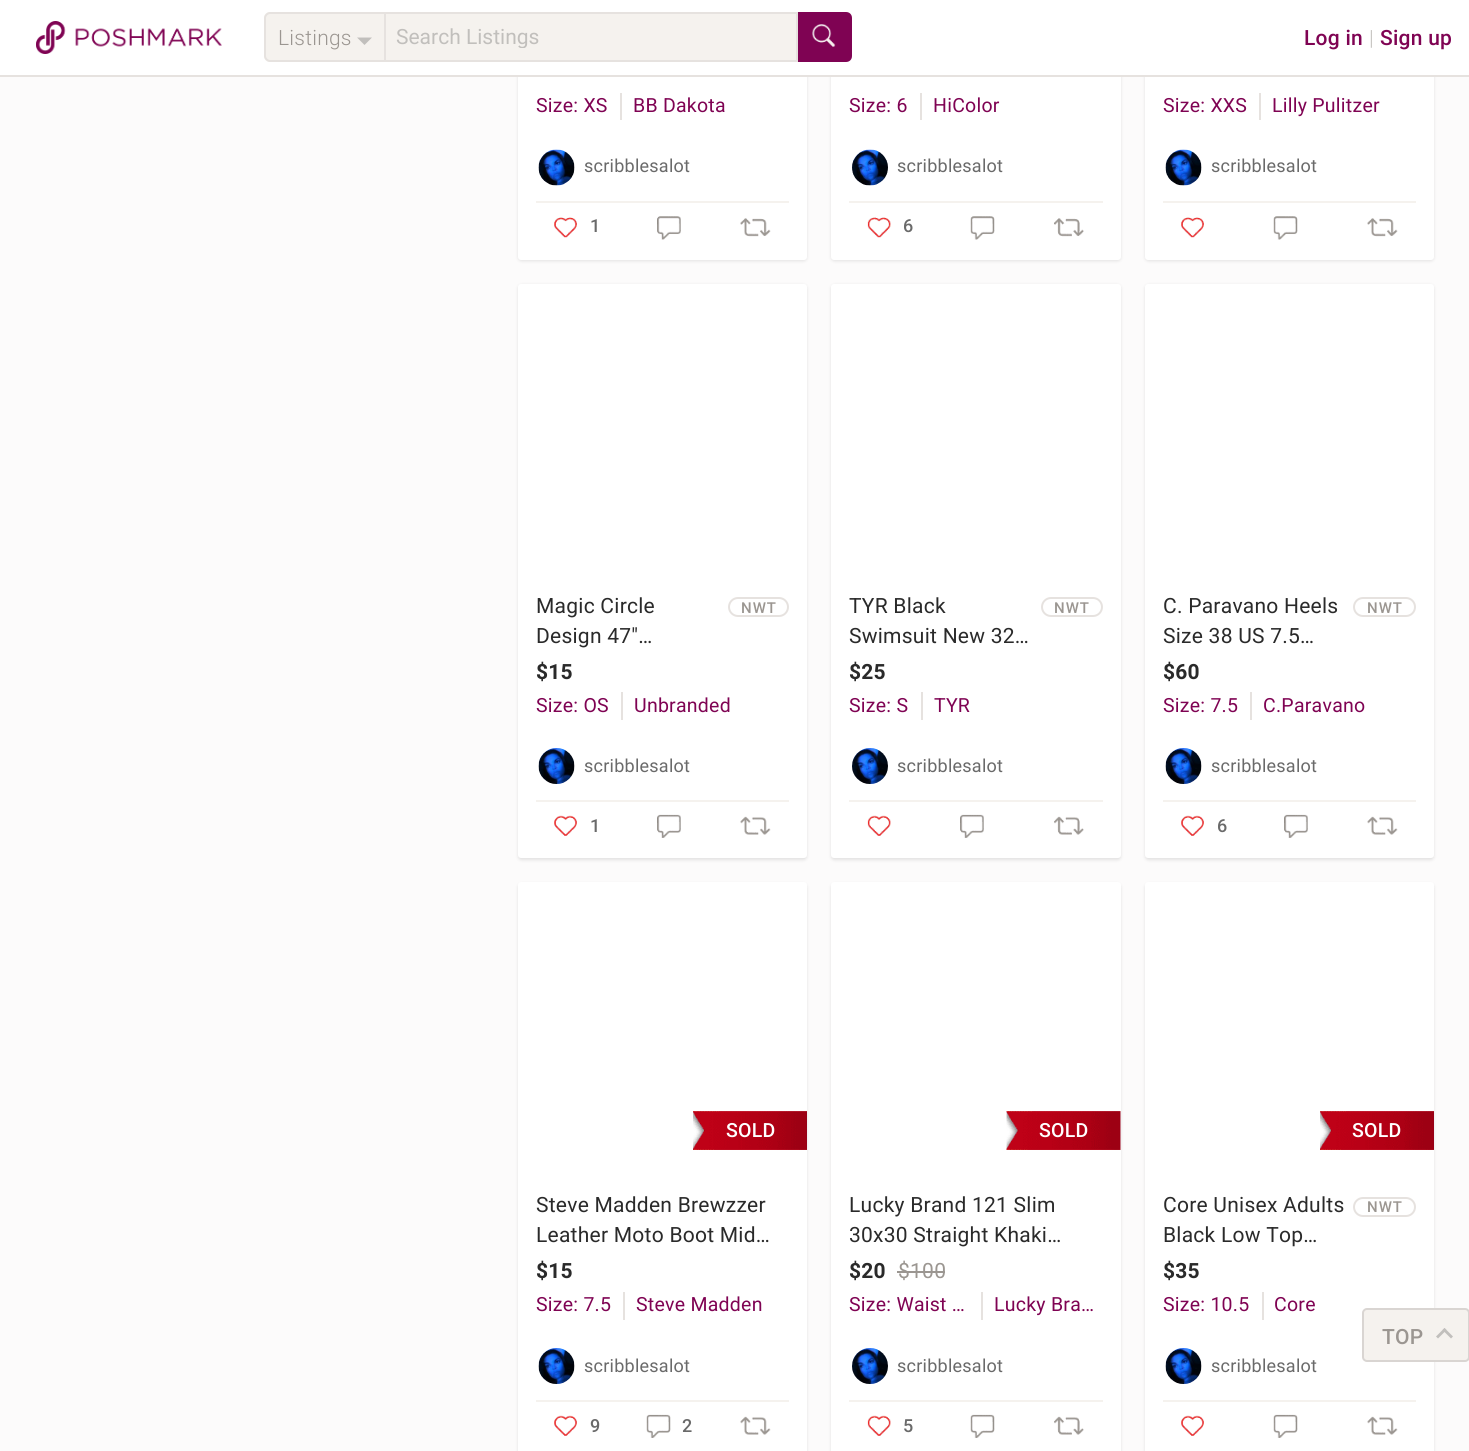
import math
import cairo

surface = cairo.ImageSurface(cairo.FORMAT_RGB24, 1469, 1451)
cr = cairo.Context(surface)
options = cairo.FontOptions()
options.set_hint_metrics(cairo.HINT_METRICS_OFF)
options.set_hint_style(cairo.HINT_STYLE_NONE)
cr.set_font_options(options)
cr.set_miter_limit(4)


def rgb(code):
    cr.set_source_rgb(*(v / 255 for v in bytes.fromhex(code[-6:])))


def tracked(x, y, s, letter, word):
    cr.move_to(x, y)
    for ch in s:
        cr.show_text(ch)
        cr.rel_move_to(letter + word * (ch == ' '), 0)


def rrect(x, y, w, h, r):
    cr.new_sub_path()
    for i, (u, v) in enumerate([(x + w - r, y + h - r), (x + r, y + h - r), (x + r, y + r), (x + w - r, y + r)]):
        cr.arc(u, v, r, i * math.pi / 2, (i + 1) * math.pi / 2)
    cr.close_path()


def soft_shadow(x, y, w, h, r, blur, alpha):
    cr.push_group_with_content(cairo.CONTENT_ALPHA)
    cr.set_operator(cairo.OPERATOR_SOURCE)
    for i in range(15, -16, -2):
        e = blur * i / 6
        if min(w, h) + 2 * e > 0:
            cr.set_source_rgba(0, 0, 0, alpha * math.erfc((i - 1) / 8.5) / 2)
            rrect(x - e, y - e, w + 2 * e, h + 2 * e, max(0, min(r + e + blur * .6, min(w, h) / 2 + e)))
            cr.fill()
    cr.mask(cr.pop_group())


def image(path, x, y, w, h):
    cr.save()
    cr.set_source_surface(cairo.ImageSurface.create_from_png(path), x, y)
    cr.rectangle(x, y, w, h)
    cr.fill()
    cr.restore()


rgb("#fcfbfb")
cr.paint()
rgb("#000000")
soft_shadow(518, -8, 289, 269, 3, 1.5, 0.1)
rgb("#ffffff")
rrect(518, -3, 289, 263, 3)
cr.fill()
rgb("#000000")
soft_shadow(831, -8, 290, 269, 3, 1.5, 0.1)
rgb("#ffffff")
rrect(831, -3, 290, 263, 3)
cr.fill()
rgb("#000000")
soft_shadow(1145, -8, 289, 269, 3, 1.5, 0.1)
rgb("#ffffff")
rrect(1145, -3, 289, 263, 3)
cr.fill()
cr.rectangle(0, 0, 1469, 75)
cr.fill()
rgb("#e6e2df")
cr.rectangle(0, 75, 1469, 2)
cr.fill()
image("img/1.png", 36, 21, 186, 33)
rgb("#f5f2ee")
cr.new_path()
cr.move_to(270, 12)
cr.line_to(384, 12)
cr.line_to(384, 62)
cr.line_to(270, 62)
cr.curve_to(266.5, 62, 264, 59.5, 264, 56)
cr.line_to(264, 18)
cr.curve_to(264, 14.5, 266.5, 12, 270, 12)
cr.close_path()
cr.fill()
rgb("#e6e2df")
cr.set_fill_rule(cairo.FILL_RULE_EVEN_ODD)
cr.new_path()
cr.move_to(270, 12)
cr.line_to(384, 12)
cr.line_to(384, 62)
cr.line_to(270, 62)
cr.curve_to(267, 62, 264, 59, 264, 56)
cr.line_to(264, 18)
cr.curve_to(264, 15, 267, 12, 270, 12)
cr.close_path()
cr.move_to(270, 14)
cr.line_to(384, 14)
cr.line_to(384, 60)
cr.line_to(270, 60)
cr.curve_to(268, 60, 266, 58, 266, 56)
cr.line_to(266, 18)
cr.curve_to(266, 16, 268, 14, 270, 14)
cr.close_path()
cr.fill()
rgb("#c1bfbc")
cr.set_fill_rule(cairo.FILL_RULE_WINDING)
cr.new_path()
cr.move_to(357, 37.5)
cr.line_to(372, 37.5)
cr.line_to(364.5, 45)
cr.close_path()
cr.fill()
rgb("#7f0353")
cr.new_path()
cr.move_to(797, 12)
cr.line_to(846, 12)
cr.curve_to(849.5, 12, 852, 14.5, 852, 18)
cr.line_to(852, 56)
cr.curve_to(852, 59.5, 849.5, 62, 846, 62)
cr.line_to(797, 62)
cr.close_path()
cr.fill()
rgb("#f5f2ee")
cr.rectangle(385, 13, 412, 48)
cr.fill_preserve()
rgb("#e6e2df")
cr.stroke()
image("img/2.png", 812, 24, 24, 23)
cr.rectangle(620, 93, 2, 27)
cr.fill()
image("img/3.png", 538, 149, 37, 37)
rgb("#f5f2ee")
cr.rectangle(536, 201, 253, 2)
cr.fill()
image("img/4.png", 554, 217, 23, 21)
image("img/5.png", 657, 216, 24, 24)
image("img/6.png", 740, 218, 31, 19)
rgb("#e6e2df")
cr.rectangle(920, 93, 2, 27)
cr.fill()
image("img/7.png", 852, 149, 36, 37)
rgb("#f5f2ee")
cr.rectangle(849, 201, 254, 2)
cr.fill()
image("img/8.png", 867, 217, 24, 21)
image("img/9.png", 970, 216, 25, 24)
image("img/10.png", 1054, 218, 30, 19)
rgb("#e6e2df")
cr.rectangle(1259, 93, 2, 27)
cr.fill()
image("img/3.png", 1165, 149, 37, 37)
rgb("#f5f2ee")
cr.rectangle(1163, 201, 253, 2)
cr.fill()
image("img/4.png", 1181, 217, 23, 21)
image("img/9.png", 1273, 216, 25, 24)
image("img/6.png", 1367, 218, 31, 19)
rgb("#000000")
soft_shadow(518, 285, 289, 575, 3, 1.5, 0.1)
rgb("#ffffff")
rrect(518, 284, 289, 574, 3)
cr.fill()
rrect(729, 598, 59, 18, 9)
rgb("#e6e2df")
cr.stroke()
cr.rectangle(621, 692, 2, 28)
cr.fill()
image("img/11.png", 538, 748, 37, 36)
rgb("#f5f2ee")
cr.rectangle(536, 800, 253, 2)
cr.fill()
image("img/12.png", 554, 815, 23, 21)
image("img/13.png", 657, 814, 24, 24)
image("img/14.png", 740, 816, 31, 19)
rgb("#000000")
soft_shadow(831, 285, 290, 575, 3, 1.5, 0.1)
rgb("#ffffff")
rrect(831, 284, 290, 574, 3)
cr.fill()
rrect(1042, 598, 60, 18, 9)
rgb("#e6e2df")
cr.stroke()
cr.rectangle(921, 692, 2, 28)
cr.fill()
image("img/15.png", 852, 748, 36, 36)
rgb("#f5f2ee")
cr.rectangle(849, 800, 254, 2)
cr.fill()
image("img/16.png", 867, 815, 24, 21)
image("img/13.png", 960, 814, 24, 24)
image("img/17.png", 1054, 816, 30, 19)
rgb("#000000")
soft_shadow(1145, 285, 289, 575, 3, 1.5, 0.1)
rgb("#ffffff")
rrect(1145, 284, 289, 574, 3)
cr.fill()
rrect(1354, 598, 61, 18, 9)
rgb("#e6e2df")
cr.stroke()
cr.rectangle(1250, 692, 2, 28)
cr.fill()
image("img/11.png", 1165, 748, 37, 36)
rgb("#f5f2ee")
cr.rectangle(1163, 800, 253, 2)
cr.fill()
image("img/12.png", 1181, 815, 23, 21)
image("img/13.png", 1284, 814, 24, 24)
image("img/14.png", 1367, 816, 31, 19)
rgb("#000000")
soft_shadow(518, 884, 289, 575, 3, 1.5, 0.1)
rgb("#ffffff")
rrect(518, 882, 289, 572, 3)
cr.fill()
image("img/18.png", 693, 1111, 114, 39)
rgb("#e6e2df")
cr.rectangle(623, 1292, 2, 28)
cr.fill()
image("img/11.png", 538, 1348, 37, 36)
rgb("#f5f2ee")
cr.rectangle(536, 1400, 253, 2)
cr.fill()
image("img/12.png", 554, 1415, 23, 21)
image("img/19.png", 646, 1414, 25, 24)
image("img/14.png", 740, 1416, 31, 19)
rgb("#000000")
soft_shadow(831, 884, 290, 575, 3, 1.5, 0.1)
rgb("#ffffff")
rrect(831, 882, 290, 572, 3)
cr.fill()
image("img/20.png", 1006, 1111, 115, 39)
rgb("#9b9691")
cr.rectangle(897, 1271, 48, 2)
cr.fill()
rgb("#e6e2df")
cr.rectangle(981, 1292, 2, 28)
cr.fill()
image("img/15.png", 852, 1348, 36, 36)
rgb("#f5f2ee")
cr.rectangle(849, 1400, 254, 2)
cr.fill()
image("img/16.png", 867, 1415, 24, 21)
image("img/19.png", 970, 1414, 25, 24)
image("img/17.png", 1054, 1416, 30, 19)
rgb("#000000")
soft_shadow(1145, 884, 289, 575, 3, 1.5, 0.1)
rgb("#ffffff")
rrect(1145, 882, 289, 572, 3)
cr.fill()
image("img/18.png", 1320, 1111, 114, 39)
rrect(1354, 1198, 61, 18, 9)
rgb("#e6e2df")
cr.stroke()
cr.rectangle(1262, 1292, 2, 28)
cr.fill()
image("img/11.png", 1165, 1348, 37, 36)
rgb("#f5f2ee")
cr.rectangle(1163, 1400, 253, 2)
cr.fill()
image("img/12.png", 1181, 1415, 23, 21)
image("img/19.png", 1273, 1414, 25, 24)
image("img/14.png", 1367, 1416, 31, 19)
rrect(1363, 1309, 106, 52, 4)
cr.fill_preserve()
rgb("#d9d5d2")
cr.stroke()
rgb("#c1bfbc")
cr.new_path()
cr.move_to(1438, 1338.5)
cr.line_to(1436, 1336.5)
cr.line_to(1444.5, 1328)
cr.line_to(1446.5, 1330)
cr.close_path()
cr.fill()
cr.new_path()
cr.move_to(1451, 1338.5)
cr.line_to(1442.5, 1330)
cr.line_to(1444.5, 1328)
cr.line_to(1453, 1336.5)
cr.close_path()
cr.fill()
cr.select_font_face("Roboto Light")
cr.set_font_size(21)
rgb("#9b9691")
tracked(278, 45, "Listings", 0.25, 0)
cr.save()
cr.rectangle(396, 24, 369, 24)
cr.clip()
cr.select_font_face("Roboto")
rgb("#c1bfbc")
cr.move_to(396, 44)
cr.show_text("Search Listings")
cr.restore()
cr.select_font_face("Roboto Medium")
rgb("#7f0353")
tracked(1304, 45, "Log in", 0.25, 0)
cr.select_font_face("Roboto Light")
rgb("#c1bfbc")
tracked(1369, 45, "|", 0.25, 0)
cr.select_font_face("Roboto Medium")
rgb("#7f0353")
tracked(1380, 45, "Sign up", 0.25, 0)
cr.select_font_face("Roboto")
cr.set_font_size(19.5)
tracked(536, 112, "Size: XS", 0.25, 0)
tracked(633, 112, "BB Dakota", 0.25, 0)
cr.set_font_size(18)
rgb("#6a6a6a")
tracked(584, 172, "scribblesalot", 0.25, 0)
cr.select_font_face("Roboto Medium")
tracked(590, 232, "1", 0.25, 0)
cr.select_font_face("Roboto")
cr.set_font_size(19.5)
rgb("#7f0353")
tracked(849, 112, "Size: 6", 0.25, 0)
tracked(933, 112, "HiColor", 0.25, 0)
cr.set_font_size(18)
rgb("#6a6a6a")
tracked(897, 172, "scribblesalot", 0.25, 0)
cr.select_font_face("Roboto Medium")
tracked(903, 232, "6", 0.25, 0)
cr.select_font_face("Roboto")
cr.set_font_size(19.5)
rgb("#7f0353")
tracked(1163, 112, "Size: XXS", 0.25, 0)
tracked(1272, 112, "Lilly Pulitzer", 0.25, 0)
cr.set_font_size(18)
rgb("#6a6a6a")
tracked(1211, 172, "scribblesalot", 0.25, 0)
cr.set_font_size(21)
rgb("#2a2a2a")
tracked(536, 613, "Magic Circle", 0.25, 0)
tracked(536, 643, "Design 47\"…", 0.25, 0)
cr.select_font_face("Roboto Medium")
cr.set_font_size(15)
rgb("#9b9691")
tracked(741, 613, "NWT", 1, 0)
cr.select_font_face("Roboto", cairo.FONT_SLANT_NORMAL, cairo.FONT_WEIGHT_BOLD)
cr.set_font_size(21)
rgb("#2a2a2a")
tracked(536, 679, "$15", 0.25, 0)
cr.select_font_face("Roboto")
cr.set_font_size(19.5)
rgb("#7f0353")
tracked(536, 712, "Size: OS", 0.25, 0)
tracked(634, 712, "Unbranded", 0.25, 0)
cr.set_font_size(18)
rgb("#6a6a6a")
tracked(584, 772, "scribblesalot", 0.25, 0)
cr.select_font_face("Roboto Medium")
tracked(590, 832, "1", 0.25, 0)
cr.select_font_face("Roboto")
cr.set_font_size(21)
rgb("#2a2a2a")
tracked(849, 613, "TYR Black", 0.25, 0)
tracked(849, 643, "Swimsuit New 32…", 0.25, 0)
cr.select_font_face("Roboto Medium")
cr.set_font_size(15)
rgb("#9b9691")
tracked(1054, 613, "NWT", 1, 0)
cr.select_font_face("Roboto", cairo.FONT_SLANT_NORMAL, cairo.FONT_WEIGHT_BOLD)
cr.set_font_size(21)
rgb("#2a2a2a")
tracked(849, 679, "$25", 0.25, 0)
cr.select_font_face("Roboto")
cr.set_font_size(19.5)
rgb("#7f0353")
tracked(849, 712, "Size: S", 0.25, 0)
tracked(934, 712, "TYR", 0.25, 0)
cr.set_font_size(18)
rgb("#6a6a6a")
tracked(897, 772, "scribblesalot", 0.25, 0)
cr.set_font_size(21)
rgb("#2a2a2a")
tracked(1163, 613, "C. Paravano Heels", 0.25, 0)
tracked(1163, 643, "Size 38 US 7.5…", 0.25, 0)
cr.select_font_face("Roboto Medium")
cr.set_font_size(15)
rgb("#9b9691")
tracked(1367, 613, "NWT", 1, 0)
cr.select_font_face("Roboto", cairo.FONT_SLANT_NORMAL, cairo.FONT_WEIGHT_BOLD)
cr.set_font_size(21)
rgb("#2a2a2a")
tracked(1163, 679, "$60", 0.25, 0)
cr.select_font_face("Roboto")
cr.set_font_size(19.5)
rgb("#7f0353")
tracked(1163, 712, "Size: 7.5", 0.25, 0)
tracked(1263, 712, "C.Paravano", 0.25, 0)
cr.set_font_size(18)
rgb("#6a6a6a")
tracked(1211, 772, "scribblesalot", 0.25, 0)
cr.select_font_face("Roboto Medium")
tracked(1217, 832, "6", 0.25, 0)
cr.set_font_size(19.5)
rgb("#ffffff")
tracked(726, 1137, "SOLD", 0.25, 0)
cr.select_font_face("Roboto")
cr.set_font_size(21)
rgb("#2a2a2a")
tracked(536, 1212, "Steve Madden Brewzzer", 0.25, 0)
tracked(536, 1242, "Leather Moto Boot Mid…", 0.25, 0)
cr.select_font_face("Roboto", cairo.FONT_SLANT_NORMAL, cairo.FONT_WEIGHT_BOLD)
tracked(536, 1278, "$15", 0.25, 0)
cr.select_font_face("Roboto")
cr.set_font_size(19.5)
rgb("#7f0353")
tracked(536, 1311, "Size: 7.5", 0.25, 0)
tracked(636, 1311, "Steve Madden", 0.25, 0)
cr.set_font_size(18)
rgb("#6a6a6a")
tracked(584, 1372, "scribblesalot", 0.25, 0)
cr.select_font_face("Roboto Medium")
tracked(590, 1432, "9", 0.25, 0)
tracked(682, 1432, "2", 0.25, 0)
cr.set_font_size(19.5)
rgb("#ffffff")
tracked(1039, 1137, "SOLD", 0.25, 0)
cr.select_font_face("Roboto")
cr.set_font_size(21)
rgb("#2a2a2a")
tracked(849, 1212, "Lucky Brand 121 Slim", 0.25, 0)
tracked(849, 1242, "30x30 Straight Khaki…", 0.25, 0)
cr.select_font_face("Roboto", cairo.FONT_SLANT_NORMAL, cairo.FONT_WEIGHT_BOLD)
tracked(849, 1278, "$20", 0.25, 0)
cr.select_font_face("Roboto")
rgb("#9b9691")
tracked(898, 1278, "$100", 0.25, 0)
cr.set_font_size(19.5)
rgb("#7f0353")
tracked(849, 1311, "Size: Waist …", 0.25, 0)
tracked(994, 1311, "Lucky Bra…", 0.25, 0)
cr.set_font_size(18)
rgb("#6a6a6a")
tracked(897, 1372, "scribblesalot", 0.25, 0)
cr.select_font_face("Roboto Medium")
tracked(903, 1432, "5", 0.25, 0)
cr.set_font_size(19.5)
rgb("#ffffff")
tracked(1352, 1137, "SOLD", 0.25, 0)
cr.select_font_face("Roboto")
cr.set_font_size(21)
rgb("#2a2a2a")
tracked(1163, 1212, "Core Unisex Adults", 0.25, 0)
tracked(1163, 1242, "Black Low Top…", 0.25, 0)
cr.select_font_face("Roboto Medium")
cr.set_font_size(15)
rgb("#9b9691")
tracked(1367, 1212, "NWT", 1, 0)
cr.select_font_face("Roboto", cairo.FONT_SLANT_NORMAL, cairo.FONT_WEIGHT_BOLD)
cr.set_font_size(21)
rgb("#2a2a2a")
tracked(1163, 1278, "$35", 0.25, 0)
cr.select_font_face("Roboto")
cr.set_font_size(19.5)
rgb("#7f0353")
tracked(1163, 1311, "Size: 10.5", 0.25, 0)
tracked(1274, 1311, "Core", 0.25, 0)
cr.set_font_size(18)
rgb("#6a6a6a")
tracked(1211, 1372, "scribblesalot", 0.25, 0)
cr.select_font_face("Roboto Medium")
cr.set_font_size(21)
rgb("#9b9691")
tracked(1382, 1344, "TOP", 0.25, 0)
surface.write_to_png("page.png")
